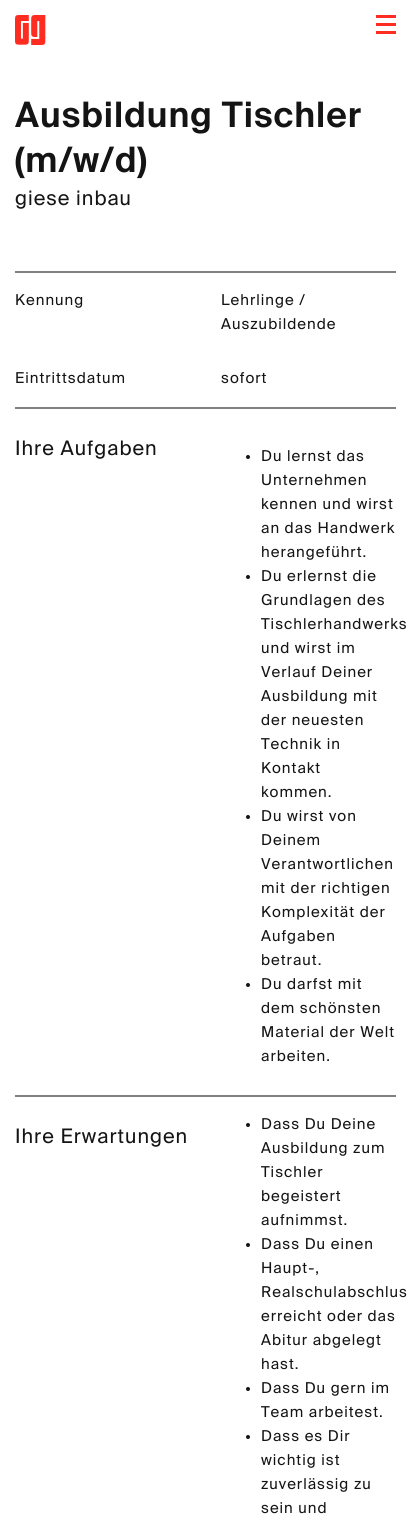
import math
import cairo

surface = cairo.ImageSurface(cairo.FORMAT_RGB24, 411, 1531)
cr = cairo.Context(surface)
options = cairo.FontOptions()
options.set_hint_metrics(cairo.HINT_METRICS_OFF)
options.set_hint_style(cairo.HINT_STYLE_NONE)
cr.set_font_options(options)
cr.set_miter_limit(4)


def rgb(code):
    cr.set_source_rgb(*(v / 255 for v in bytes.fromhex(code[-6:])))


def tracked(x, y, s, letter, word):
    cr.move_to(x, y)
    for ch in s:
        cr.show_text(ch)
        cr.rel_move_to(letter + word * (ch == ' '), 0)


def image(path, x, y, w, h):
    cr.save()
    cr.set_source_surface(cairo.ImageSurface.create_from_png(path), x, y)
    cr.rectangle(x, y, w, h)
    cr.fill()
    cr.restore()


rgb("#ffffff")
cr.paint()
image("img/1.png", 15, 15, 31, 30)
for x, y, w, h, color in [
    (376, 15, 20, 3, "#ff2c21"),
    (376, 23, 20, 3, "#ff2c21"),
    (376, 31, 20, 3, "#ff2c21"),
    (15, 271, 381, 2, "#808080"),
    (15, 407, 381, 2, "#808080"),
]:
    rgb(color)
    cr.rectangle(x, y, w, h)
    cr.fill()
rgb("#141414")
cr.arc(248, 457, 2, 0, 2 * math.pi)
cr.fill()
cr.arc(248, 577, 2, 0, 2 * math.pi)
cr.fill()
cr.arc(248, 817, 2, 0, 2 * math.pi)
cr.fill()
cr.arc(248, 985, 2, 0, 2 * math.pi)
cr.fill()
rgb("#808080")
cr.rectangle(15, 1095, 381, 2)
cr.fill()
rgb("#141414")
cr.arc(248, 1125, 2, 0, 2 * math.pi)
cr.fill()
cr.arc(248, 1245, 2, 0, 2 * math.pi)
cr.fill()
cr.arc(248, 1389, 2, 0, 2 * math.pi)
cr.fill()
cr.arc(248, 1437, 2, 0, 2 * math.pi)
cr.fill()
cr.select_font_face("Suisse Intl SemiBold")
cr.set_font_size(35)
tracked(15, 127, "Ausbildung Tischler", 1, 0)
tracked(15, 172, "(m/w/d)", 1, 0)
cr.select_font_face("Suisse Intl")
cr.set_font_size(20)
tracked(15, 205, "giese inbau", 1, 0)
cr.set_font_size(15)
for x, y, s in [
    (15, 305, "Kennung"),
    (221, 305, "Lehrlinge /"),
    (221, 329, "Auszubildende"),
    (15, 383, "Eintrittsdatum"),
    (221, 383, "sofort"),
]:
    tracked(x, y, s, 1, 0)
cr.set_font_size(20)
tracked(15, 455, "Ihre Aufgaben", 1, 0)
cr.set_font_size(15)
for x, y, s in [
    (261, 461, "Du lernst das"),
    (261, 485, "Unternehmen"),
    (261, 509, "kennen und wirst"),
    (261, 533, "an das Handwerk"),
    (261, 557, "herangeführt."),
    (261, 581, "Du erlernst die"),
    (261, 605, "Grundlagen des"),
    (261, 629, "Tischlerhandwerks"),
    (261, 653, "und wirst im"),
    (261, 677, "Verlauf Deiner"),
    (261, 701, "Ausbildung mit"),
    (261, 725, "der neuesten"),
    (261, 749, "Technik in"),
    (261, 773, "Kontakt"),
    (261, 797, "kommen."),
    (261, 821, "Du wirst von"),
    (261, 845, "Deinem"),
    (261, 869, "Verantwortlichen"),
    (261, 893, "mit der richtigen"),
    (261, 917, "Komplexität der"),
    (261, 941, "Aufgaben"),
    (261, 965, "betraut."),
    (261, 989, "Du darfst mit"),
    (261, 1013, "dem schönsten"),
    (261, 1037, "Material der Welt"),
    (261, 1061, "arbeiten."),
]:
    tracked(x, y, s, 1, 0)
cr.set_font_size(20)
tracked(15, 1143, "Ihre Erwartungen", 1, 0)
cr.set_font_size(15)
for x, y, s in [
    (261, 1129, "Dass Du Deine"),
    (261, 1153, "Ausbildung zum"),
    (261, 1177, "Tischler"),
    (261, 1201, "begeistert"),
    (261, 1225, "aufnimmst."),
    (261, 1249, "Dass Du einen"),
    (261, 1273, "Haupt-,"),
    (261, 1297, "Realschulabschlus"),
    (261, 1321, "erreicht oder das"),
    (261, 1345, "Abitur abgelegt"),
    (261, 1369, "hast."),
    (261, 1393, "Dass Du gern im"),
    (261, 1417, "Team arbeitest."),
    (261, 1441, "Dass es Dir"),
    (261, 1465, "wichtig ist"),
    (261, 1489, "zuverlässig zu"),
    (261, 1513, "sein und"),
]:
    tracked(x, y, s, 1, 0)
surface.write_to_png("page.png")
